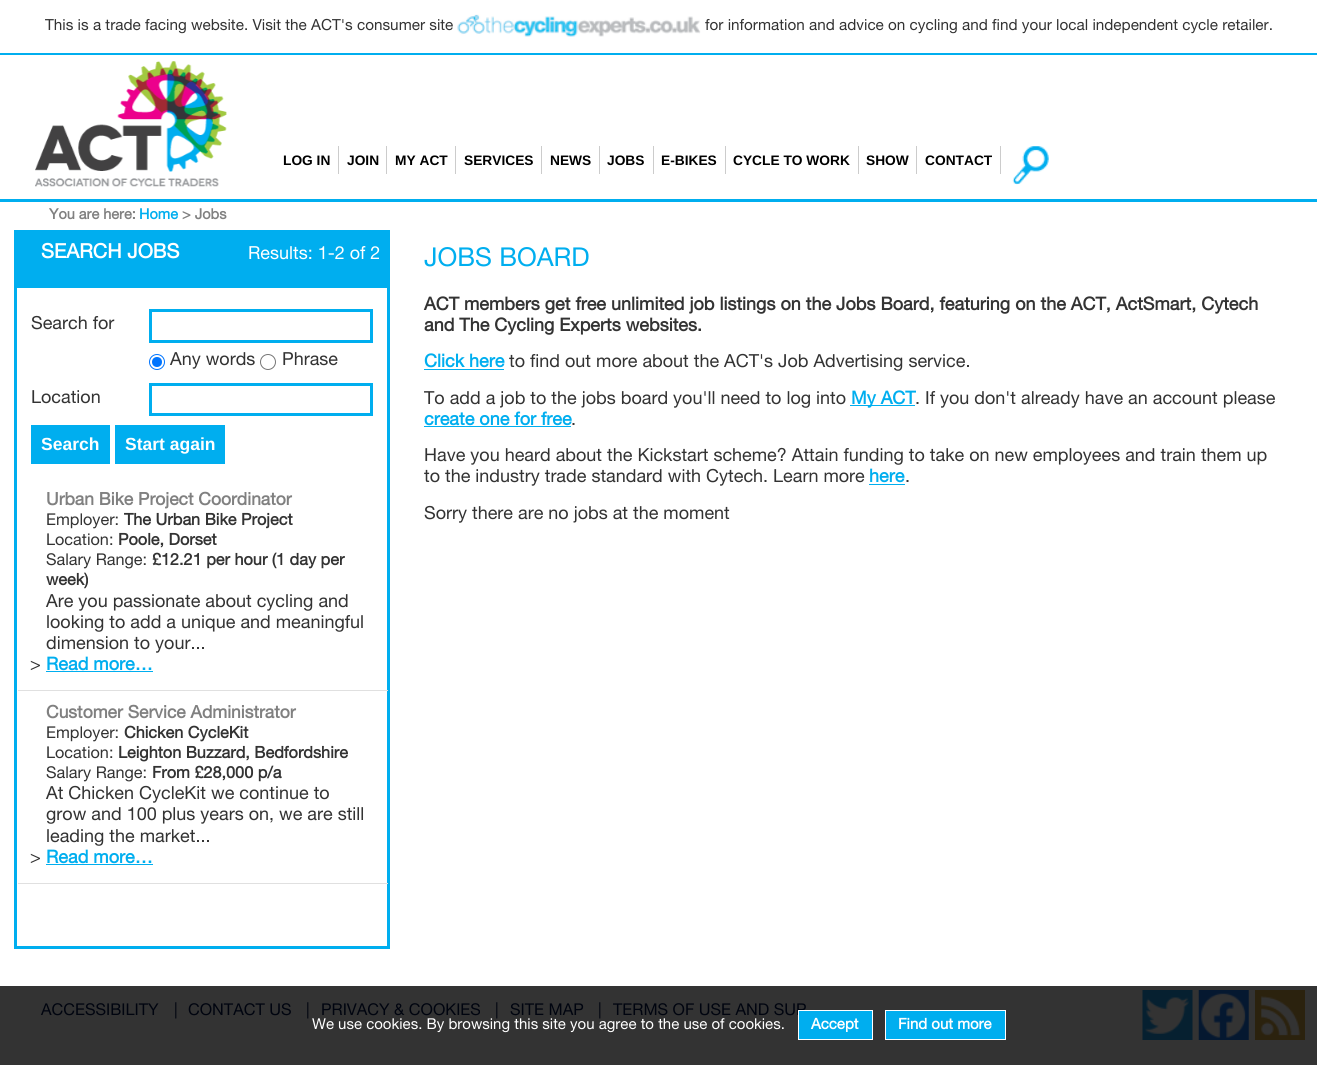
import math
import cairo

surface = cairo.ImageSurface(cairo.FORMAT_RGB24, 1317, 1065)
cr = cairo.Context(surface)
options = cairo.FontOptions()
options.set_hint_metrics(cairo.HINT_METRICS_OFF)
options.set_hint_style(cairo.HINT_STYLE_NONE)
cr.set_font_options(options)
cr.set_miter_limit(4)


def rgb(code):
    cr.set_source_rgb(*(v / 255 for v in bytes.fromhex(code[-6:])))


def image(path, x, y, w, h):
    cr.save()
    cr.set_source_surface(cairo.ImageSurface.create_from_png(path), x, y)
    cr.rectangle(x, y, w, h)
    cr.fill()
    cr.restore()


rgb("#333333")
cr.paint()
rgb("#ffffff")
cr.rectangle(0, 0, 1317, 986)
cr.fill()
rgb("#00aeef")
cr.rectangle(0, 53, 1317, 2)
cr.fill()
image("img/1.png", 457, 14, 244, 23)
cr.rectangle(0, 199, 1317, 3)
cr.fill()
image("img/2.png", 35, 61, 192, 126)
for x, y, w, h, color in [
    (338, 146, 1, 28, "#cccccc"),
    (386, 146, 1, 28, "#cccccc"),
    (455, 146, 1, 28, "#cccccc"),
    (541, 146, 1, 28, "#cccccc"),
    (599, 146, 1, 28, "#cccccc"),
    (653, 146, 1, 28, "#cccccc"),
    (725, 146, 1, 28, "#cccccc"),
    (858, 146, 1, 28, "#cccccc"),
    (916, 146, 1, 28, "#cccccc"),
    (1000, 146, 1, 28, "#cccccc"),
]:
    rgb(color)
    cr.rectangle(x, y, w, h)
    cr.fill()
image("img/3.png", 1012, 146, 37, 39)
cr.rectangle(15.5, 231.5, 373, 716)
rgb("#00aeef")
cr.set_line_width(3)
cr.stroke()
cr.rectangle(17, 233, 370, 55)
cr.fill()
cr.rectangle(150.5, 310.5, 221, 31)
cr.stroke()
cr.arc(157, 362, 7.5, 0, 2 * math.pi)
rgb("#0075ff")
cr.set_line_width(1)
cr.stroke()
cr.arc(157, 362, 5, 0, 2 * math.pi)
cr.fill()
cr.arc(268, 362, 7.5, 0, 2 * math.pi)
rgb("#767676")
cr.stroke()
cr.rectangle(150.5, 384.5, 221, 30)
rgb("#00aeef")
cr.set_line_width(3)
cr.stroke()
for x, y, w, h, color in [
    (31, 425, 79, 39, "#00aeef"),
    (115, 425, 110, 39, "#00aeef"),
    (18, 690, 370, 1, "#e0e0e0"),
    (46, 671, 107, 1, "#00aeef"),
    (18, 883, 370, 1, "#e0e0e0"),
    (46, 864, 107, 1, "#00aeef"),
    (424, 369, 80, 1, "#00aeef"),
    (850, 405, 65, 1, "#00aeef"),
    (424, 426, 147, 1, "#00aeef"),
    (869, 484, 36, 1, "#00aeef"),
]:
    rgb(color)
    cr.rectangle(x, y, w, h)
    cr.fill()
image("img/4.png", 1142, 990, 51, 50)
image("img/5.png", 1198, 990, 51, 50)
image("img/6.png", 1255, 990, 50, 50)
cr.rectangle(885.5, 1010.5, 120, 29)
cr.fill_preserve()
rgb("#ffffff")
cr.set_line_width(1)
cr.stroke()
cr.select_font_face("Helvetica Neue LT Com")
cr.set_font_size(15.3)
rgb("#333333")
cr.move_to(45, 30)
cr.show_text("This is a trade facing website. Visit the ACT's consumer site")
cr.move_to(705, 30)
cr.show_text("for information and advice on cycling and find your local independent cycle retailer.")
cr.select_font_face("Liberation Sans", cairo.FONT_SLANT_NORMAL, cairo.FONT_WEIGHT_BOLD)
cr.set_font_size(13.75)
rgb("#000000")
for x, y, s in [
    (283, 165, "LOG IN"),
    (347, 165, "JOIN"),
    (395, 165, "MY ACT"),
    (464, 165, "SERVICES"),
    (550, 165, "NEWS"),
    (607, 165, "JOBS"),
    (661, 165, "E-BIKES"),
    (733, 165, "CYCLE TO WORK"),
    (866, 165, "SHOW"),
    (925, 165, "CONTACT"),
]:
    cr.move_to(x, y)
    cr.show_text(s)
cr.select_font_face("Helvetica Neue LT Com", cairo.FONT_SLANT_NORMAL, cairo.FONT_WEIGHT_BOLD)
cr.set_font_size(14.5)
rgb("#808080")
cr.move_to(49, 219)
cr.show_text("You are here:")
rgb("#00aeef")
cr.move_to(139, 219)
cr.show_text("Home")
rgb("#808080")
cr.move_to(182, 219)
cr.show_text("> Jobs")
cr.set_font_size(20)
rgb("#ffffff")
cr.move_to(41, 258)
cr.show_text("SEARCH JOBS")
cr.select_font_face("Helvetica Neue LT Com")
cr.set_font_size(18)
cr.move_to(248, 259)
cr.show_text("Results: 1-2 of 2")
rgb("#333333")
for x, y, s in [
    (31, 329, "Search for"),
    (170, 365, "Any words"),
    (282, 365, "Phrase"),
    (31, 403, "Location"),
]:
    cr.move_to(x, y)
    cr.show_text(s)
cr.select_font_face("Liberation Sans", cairo.FONT_SLANT_NORMAL, cairo.FONT_WEIGHT_BOLD)
cr.set_font_size(17.5)
rgb("#ffffff")
cr.move_to(41, 450)
cr.show_text("Search")
cr.move_to(125, 450)
cr.show_text("Start again")
cr.select_font_face("Helvetica Neue LT Com", cairo.FONT_SLANT_NORMAL, cairo.FONT_WEIGHT_BOLD)
rgb("#808080")
cr.move_to(46, 505)
cr.show_text("Urban Bike Project Coordinator")
cr.select_font_face("Helvetica Neue LT Com")
cr.set_font_size(16.25)
rgb("#333333")
cr.move_to(46, 525)
cr.show_text("Employer:")
cr.select_font_face("Helvetica Neue LT Com", cairo.FONT_SLANT_NORMAL, cairo.FONT_WEIGHT_BOLD)
cr.move_to(124, 525)
cr.show_text("The Urban Bike Project")
cr.select_font_face("Helvetica Neue LT Com")
cr.move_to(46, 545)
cr.show_text("Location:")
cr.select_font_face("Helvetica Neue LT Com", cairo.FONT_SLANT_NORMAL, cairo.FONT_WEIGHT_BOLD)
cr.move_to(118, 545)
cr.show_text("Poole, Dorset")
cr.select_font_face("Helvetica Neue LT Com")
cr.move_to(46, 565)
cr.show_text("Salary Range:")
cr.select_font_face("Helvetica Neue LT Com", cairo.FONT_SLANT_NORMAL, cairo.FONT_WEIGHT_BOLD)
cr.move_to(152, 565)
cr.show_text("£12.21 per hour (1 day per")
cr.move_to(46, 585)
cr.show_text("week)")
cr.select_font_face("Helvetica Neue LT Com")
cr.set_font_size(18)
for x, y, s in [
    (46, 607, "Are you passionate about cycling and"),
    (46, 628, "looking to add a unique and meaningful"),
    (46, 649, "dimension to your..."),
    (30, 670, ">"),
]:
    cr.move_to(x, y)
    cr.show_text(s)
cr.select_font_face("Helvetica Neue LT Com", cairo.FONT_SLANT_NORMAL, cairo.FONT_WEIGHT_BOLD)
rgb("#00aeef")
cr.move_to(46, 670)
cr.show_text("Read more…")
cr.set_font_size(17.5)
rgb("#808080")
cr.move_to(46, 718)
cr.show_text("Customer Service Administrator")
cr.select_font_face("Helvetica Neue LT Com")
cr.set_font_size(16.25)
rgb("#333333")
cr.move_to(46, 738)
cr.show_text("Employer:")
cr.select_font_face("Helvetica Neue LT Com", cairo.FONT_SLANT_NORMAL, cairo.FONT_WEIGHT_BOLD)
cr.move_to(124, 738)
cr.show_text("Chicken CycleKit")
cr.select_font_face("Helvetica Neue LT Com")
cr.move_to(46, 758)
cr.show_text("Location:")
cr.select_font_face("Helvetica Neue LT Com", cairo.FONT_SLANT_NORMAL, cairo.FONT_WEIGHT_BOLD)
cr.move_to(118, 758)
cr.show_text("Leighton Buzzard, Bedfordshire")
cr.select_font_face("Helvetica Neue LT Com")
cr.move_to(46, 778)
cr.show_text("Salary Range:")
cr.select_font_face("Helvetica Neue LT Com", cairo.FONT_SLANT_NORMAL, cairo.FONT_WEIGHT_BOLD)
cr.move_to(152, 778)
cr.show_text("From £28,000 p/a")
cr.select_font_face("Helvetica Neue LT Com")
cr.set_font_size(18)
for x, y, s in [
    (46, 799, "At Chicken CycleKit we continue to"),
    (46, 820, "grow and 100 plus years on, we are still"),
    (46, 842, "leading the market..."),
    (30, 863, ">"),
]:
    cr.move_to(x, y)
    cr.show_text(s)
cr.select_font_face("Helvetica Neue LT Com", cairo.FONT_SLANT_NORMAL, cairo.FONT_WEIGHT_BOLD)
rgb("#00aeef")
cr.move_to(46, 863)
cr.show_text("Read more…")
cr.select_font_face("Helvetica Neue LT Com")
cr.set_font_size(26)
cr.move_to(424, 266)
cr.show_text("JOBS BOARD")
cr.select_font_face("Helvetica Neue LT Com", cairo.FONT_SLANT_NORMAL, cairo.FONT_WEIGHT_BOLD)
cr.set_font_size(18)
rgb("#333333")
cr.move_to(424, 310)
cr.show_text("ACT members get free unlimited job listings on the Jobs Board, featuring on the ACT, ActSmart, Cytech")
cr.move_to(424, 331)
cr.show_text("and The Cycling Experts websites.")
rgb("#00aeef")
cr.move_to(424, 367)
cr.show_text("Click here")
cr.select_font_face("Helvetica Neue LT Com")
rgb("#333333")
cr.move_to(509, 367)
cr.show_text("to find out more about the ACT's Job Advertising service.")
cr.move_to(424, 404)
cr.show_text("To add a job to the jobs board you'll need to log into")
cr.select_font_face("Helvetica Neue LT Com", cairo.FONT_SLANT_NORMAL, cairo.FONT_WEIGHT_BOLD)
rgb("#00aeef")
cr.move_to(851, 404)
cr.show_text("My ACT")
cr.select_font_face("Helvetica Neue LT Com")
rgb("#333333")
cr.move_to(915, 404)
cr.show_text(". If you don't already have an account please")
cr.select_font_face("Helvetica Neue LT Com", cairo.FONT_SLANT_NORMAL, cairo.FONT_WEIGHT_BOLD)
rgb("#00aeef")
cr.move_to(424, 425)
cr.show_text("create one for free")
cr.select_font_face("Helvetica Neue LT Com")
rgb("#333333")
for x, y, s in [
    (571, 425, "."),
    (424, 461, "Have you heard about the Kickstart scheme? Attain funding to take on new employees and train them up"),
    (424, 482, "to the industry trade standard with Cytech. Learn more"),
]:
    cr.move_to(x, y)
    cr.show_text(s)
cr.select_font_face("Helvetica Neue LT Com", cairo.FONT_SLANT_NORMAL, cairo.FONT_WEIGHT_BOLD)
rgb("#00aeef")
cr.move_to(869, 482)
cr.show_text("here")
cr.select_font_face("Helvetica Neue LT Com")
rgb("#333333")
cr.move_to(905, 482)
cr.show_text(".")
cr.move_to(424, 519)
cr.show_text("Sorry there are no jobs at the moment")
cr.set_font_size(16.25)
rgb("#00040f")
for x, y, s in [
    (41, 1015, "ACCESSIBILITY"),
    (174, 1015, "|"),
    (188, 1015, "CONTACT US"),
    (306, 1015, "|"),
    (321, 1015, "PRIVACY & COOKIES"),
    (495, 1015, "|"),
    (510, 1015, "SITE MAP"),
    (598, 1015, "|"),
    (613, 1015, "TERMS OF USE AND SUP"),
]:
    cr.move_to(x, y)
    cr.show_text(s)
cr.set_font_size(15)
rgb("#ffffff")
cr.move_to(312, 1029)
cr.show_text("We use cookies. By browsing this site you agree to the use of cookies.")
rgb("#00aeef")
cr.rectangle(798.5, 1010.5, 74, 29)
cr.fill_preserve()
rgb("#ffffff")
cr.stroke()
cr.select_font_face("Helvetica Neue LT Com", cairo.FONT_SLANT_NORMAL, cairo.FONT_WEIGHT_BOLD)
cr.move_to(811, 1029)
cr.show_text("Accept")
cr.move_to(898, 1029)
cr.show_text("Find out more")
surface.write_to_png("page.png")
